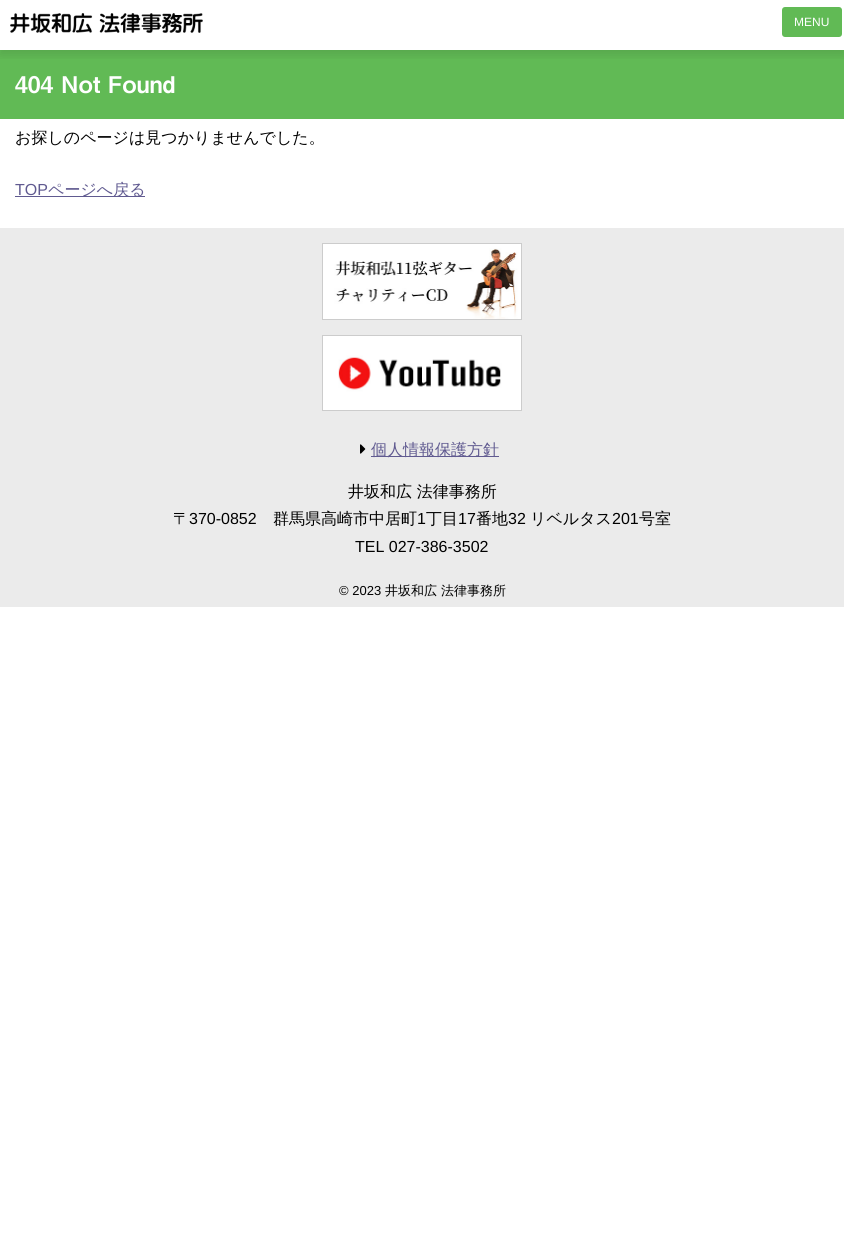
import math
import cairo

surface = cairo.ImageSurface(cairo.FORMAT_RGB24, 844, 1249)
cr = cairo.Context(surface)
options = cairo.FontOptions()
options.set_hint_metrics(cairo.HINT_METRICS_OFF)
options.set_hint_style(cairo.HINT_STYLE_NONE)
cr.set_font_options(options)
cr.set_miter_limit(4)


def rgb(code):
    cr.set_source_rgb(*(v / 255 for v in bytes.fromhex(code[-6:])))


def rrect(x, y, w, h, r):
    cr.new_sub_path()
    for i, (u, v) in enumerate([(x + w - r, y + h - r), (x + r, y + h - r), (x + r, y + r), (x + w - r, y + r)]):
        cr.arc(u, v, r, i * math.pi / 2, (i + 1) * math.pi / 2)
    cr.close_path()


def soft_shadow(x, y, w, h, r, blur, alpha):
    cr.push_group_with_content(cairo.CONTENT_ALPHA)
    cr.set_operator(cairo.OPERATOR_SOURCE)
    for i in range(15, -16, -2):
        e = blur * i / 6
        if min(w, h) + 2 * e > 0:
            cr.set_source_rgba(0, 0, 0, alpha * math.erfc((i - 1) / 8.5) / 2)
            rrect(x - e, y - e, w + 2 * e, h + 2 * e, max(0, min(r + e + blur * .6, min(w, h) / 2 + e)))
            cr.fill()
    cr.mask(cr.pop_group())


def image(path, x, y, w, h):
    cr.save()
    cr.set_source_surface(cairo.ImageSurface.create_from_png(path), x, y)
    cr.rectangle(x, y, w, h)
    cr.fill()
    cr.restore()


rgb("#ffffff")
cr.paint()
rgb("#61ba55")
cr.rectangle(0, 50, 844, 69)
cr.fill()
cr.save()
cr.rectangle(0, 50, 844, 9)
cr.clip()
rgb("#000000")
soft_shadow(0, 5, 844, 50, 0, 5, 0.1)
cr.restore()
image("img/1.png", 10, 13, 193, 20)
rrect(782, 7, 60, 30, 3)
cr.fill()
rgb("#605a90")
cr.rectangle(15, 196, 130, 1)
cr.fill()
rgb("#ebebeb")
cr.rectangle(0, 228, 844, 379)
cr.fill()
cr.rectangle(322.5, 243.5, 199, 76)
rgb("#cccccc")
cr.set_line_width(1)
cr.stroke()
image("img/2.png", 323, 244, 198, 75)
cr.rectangle(322.5, 335.5, 199, 75)
cr.stroke()
image("img/3.png", 323, 336, 198, 74)
image("img/4.png", 360, 444, 6, 10)
rgb("#605a90")
cr.rectangle(371, 456, 128, 1)
cr.fill()
cr.select_font_face("Liberation Sans")
cr.set_font_size(12)
rgb("#ffffff")
cr.move_to(794, 26)
cr.show_text("MENU")
cr.select_font_face("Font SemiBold")
cr.set_font_size(23)
cr.move_to(15, 93)
cr.show_text("404 Not Found")
cr.select_font_face("WenQuanYi Zen Hei Medium")
cr.set_font_size(16)
rgb("#000000")
cr.move_to(15, 143)
cr.show_text("お探しのページは見つかりませんでした。")
cr.select_font_face("Liberation Sans")
rgb("#605a90")
cr.move_to(15, 195)
cr.show_text("TOP")
cr.select_font_face("WenQuanYi Zen Hei Medium")
cr.move_to(48, 195)
cr.show_text("ページへ戻る")
cr.move_to(371, 455)
cr.show_text("個人情報保護方針")
rgb("#000000")
cr.move_to(348, 497)
cr.show_text("井坂和広 法律事務所")
cr.move_to(173, 524)
cr.show_text("〒")
cr.select_font_face("Liberation Sans")
cr.move_to(189, 524)
cr.show_text("370-0852")
cr.select_font_face("WenQuanYi Zen Hei Medium")
cr.move_to(273, 524)
cr.show_text("群馬県高崎市中居町")
cr.select_font_face("Liberation Sans")
cr.move_to(417, 524)
cr.show_text("1")
cr.select_font_face("WenQuanYi Zen Hei Medium")
cr.move_to(426, 524)
cr.show_text("丁目")
cr.select_font_face("Liberation Sans")
cr.move_to(458, 524)
cr.show_text("17")
cr.select_font_face("WenQuanYi Zen Hei Medium")
cr.move_to(476, 524)
cr.show_text("番地")
cr.select_font_face("Liberation Sans")
cr.move_to(508, 524)
cr.show_text("32")
cr.select_font_face("WenQuanYi Zen Hei Medium")
cr.move_to(530, 524)
cr.show_text("リベルタス")
cr.select_font_face("Liberation Sans")
cr.move_to(612, 524)
cr.show_text("201")
cr.select_font_face("WenQuanYi Zen Hei Medium")
cr.move_to(639, 524)
cr.show_text("号室")
cr.select_font_face("Liberation Sans")
cr.move_to(355, 552)
cr.show_text("TEL 027-386-3502")
cr.set_font_size(13)
cr.move_to(339, 595)
cr.show_text("© 2023")
cr.select_font_face("WenQuanYi Zen Hei Medium")
cr.move_to(385, 595)
cr.show_text("井坂和広 法律事務所")
surface.write_to_png("page.png")
